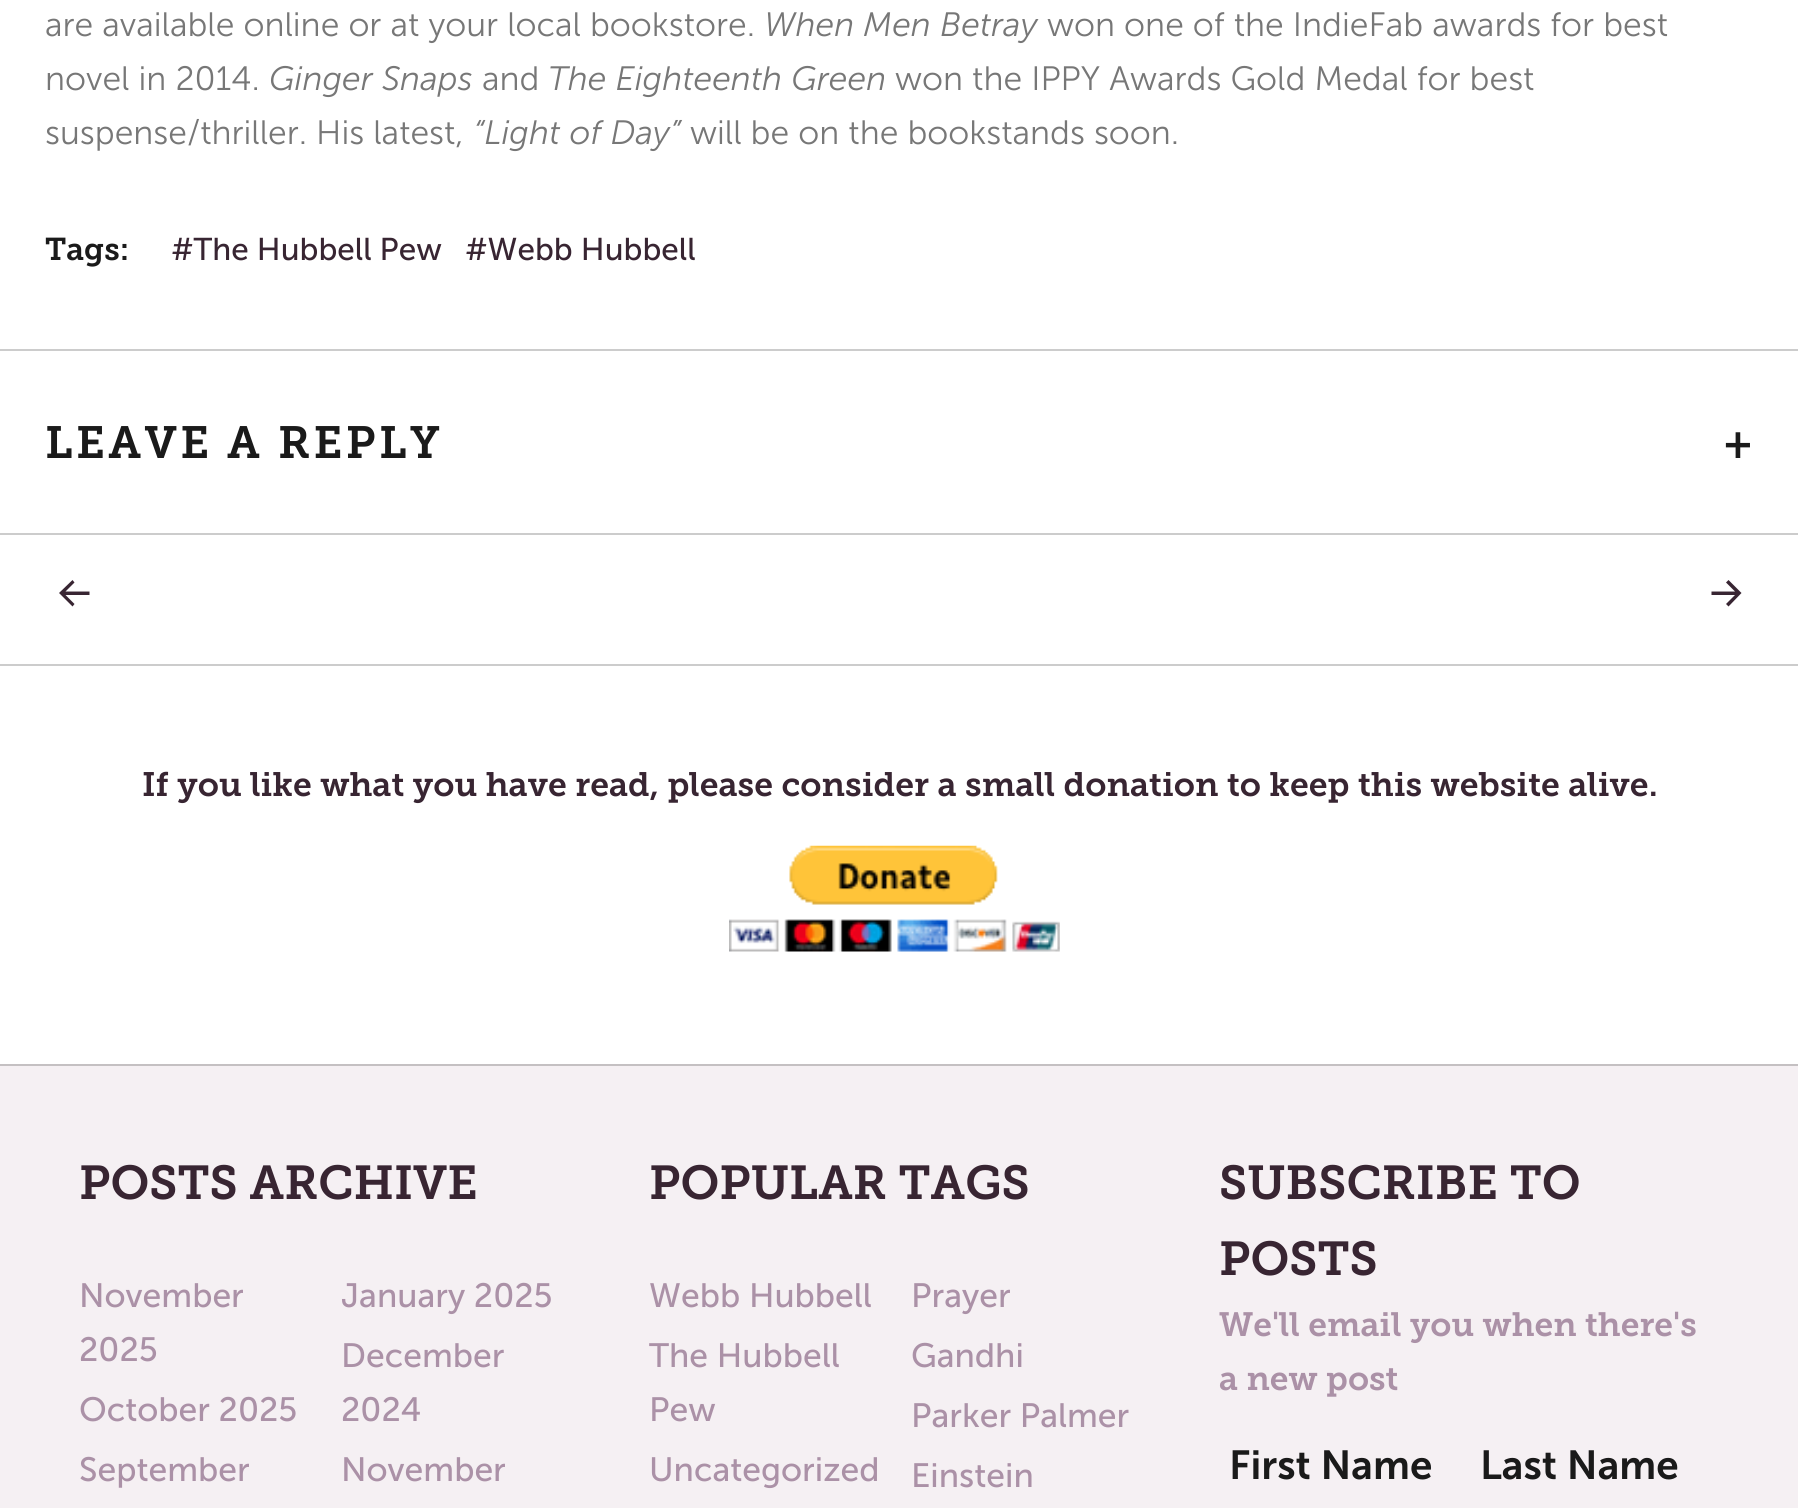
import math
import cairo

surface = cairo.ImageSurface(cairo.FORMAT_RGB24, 1798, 1508)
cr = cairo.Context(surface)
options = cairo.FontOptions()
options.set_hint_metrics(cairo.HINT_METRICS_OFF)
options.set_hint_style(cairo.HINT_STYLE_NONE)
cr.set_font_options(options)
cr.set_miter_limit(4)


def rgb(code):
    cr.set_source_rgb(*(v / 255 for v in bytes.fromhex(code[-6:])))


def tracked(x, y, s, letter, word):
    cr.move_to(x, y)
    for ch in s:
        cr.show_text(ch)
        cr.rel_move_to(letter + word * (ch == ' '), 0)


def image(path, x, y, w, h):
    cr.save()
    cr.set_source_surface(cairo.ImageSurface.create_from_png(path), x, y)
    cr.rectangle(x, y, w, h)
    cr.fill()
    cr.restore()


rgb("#ffffff")
cr.paint()
rgb("#cccccc")
cr.rectangle(0, 349, 1798, 2)
cr.fill()
cr.rectangle(0, 533, 1798, 2)
cr.fill()
rgb("#382532")
cr.new_path()
cr.move_to(72.5, 580)
cr.line_to(74.5, 582.5)
cr.line_to(65.5, 591.5)
cr.line_to(89.5, 591.5)
cr.line_to(89.5, 595)
cr.line_to(65.5, 595)
cr.line_to(74.5, 604)
cr.line_to(72.5, 606.5)
cr.line_to(59, 593)
cr.close_path()
cr.fill()
cr.new_path()
cr.move_to(1728.5, 580)
cr.line_to(1741.5, 593)
cr.line_to(1728.5, 606.5)
cr.line_to(1726, 604)
cr.line_to(1735, 595)
cr.line_to(1711.5, 595)
cr.line_to(1711.5, 591.5)
cr.line_to(1735, 591.5)
cr.line_to(1726, 582.5)
cr.close_path()
cr.fill()
rgb("#cccccc")
cr.rectangle(0, 664, 1798, 2)
cr.fill()
image("img/1.png", 729, 845, 331, 107)
rgb("#f5f0f3")
cr.rectangle(0, 1066, 1798, 442)
cr.fill()
rgb("#c4c0c2")
cr.rectangle(0, 1064, 1798, 2)
cr.fill()
cr.select_font_face("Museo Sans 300 Light")
cr.set_font_size(33.75)
rgb("#777777")
cr.move_to(45, 36)
cr.show_text("are available online or at your local bookstore.")
cr.select_font_face("Museo Sans 300 Light", cairo.FONT_SLANT_ITALIC)
cr.move_to(764, 36)
cr.show_text("When Men Betray")
cr.select_font_face("Museo Sans 300 Light")
cr.move_to(1047, 36)
cr.show_text("won one of the IndieFab awards for best")
cr.move_to(45, 90)
cr.show_text("novel in 2014.")
cr.select_font_face("Museo Sans 300 Light", cairo.FONT_SLANT_ITALIC)
cr.move_to(269, 90)
cr.show_text("Ginger Snaps")
cr.select_font_face("Museo Sans 300 Light")
cr.move_to(482, 90)
cr.show_text("and")
cr.select_font_face("Museo Sans 300 Light", cairo.FONT_SLANT_ITALIC)
cr.move_to(548, 90)
cr.show_text("The Eighteenth Green")
cr.select_font_face("Museo Sans 300 Light")
cr.move_to(895, 90)
cr.show_text("won the IPPY Awards Gold Medal for best")
cr.move_to(45, 144)
cr.show_text("suspense/thriller. His latest,")
cr.select_font_face("Museo Sans 300 Light", cairo.FONT_SLANT_ITALIC)
cr.move_to(473, 144)
cr.show_text("“Light of Day”")
cr.select_font_face("Museo Sans 300 Light")
cr.move_to(690, 144)
cr.show_text("will be on the bookstands soon.")
cr.select_font_face("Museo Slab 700 SemiBold")
cr.set_font_size(31.5)
rgb("#1a1a1a")
cr.move_to(45, 260)
cr.show_text("Tags:")
cr.select_font_face("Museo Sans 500")
rgb("#382532")
cr.move_to(171, 260)
cr.show_text("#The Hubbell Pew")
cr.move_to(465, 260)
cr.show_text("#Webb Hubbell")
cr.select_font_face("Museo Slab 700 SemiBold")
cr.set_font_size(45)
rgb("#1a1a1a")
tracked(45, 458, "LEAVE A REPLY", 3.4, 0)
tracked(1724, 458, "+", 3.4, 0)
cr.set_font_size(33.75)
rgb("#382532")
cr.move_to(142, 796)
cr.show_text("If you like what you have read, please consider a small donation to keep this website alive.")
cr.set_font_size(47.4)
cr.move_to(79, 1199)
cr.show_text("POSTS ARCHIVE")
cr.select_font_face("Museo Sans 500")
cr.set_font_size(33.75)
rgb("#ab91a7")
for x, y, s in [
    (79, 1307, "November"),
    (79, 1361, "2025"),
    (341, 1307, "January 2025"),
    (79, 1421, "October 2025"),
    (341, 1367, "December"),
    (341, 1421, "2024"),
    (79, 1481, "September"),
    (341, 1481, "November"),
]:
    cr.move_to(x, y)
    cr.show_text(s)
cr.select_font_face("Museo Slab 700 SemiBold")
cr.set_font_size(47.4)
rgb("#382532")
cr.move_to(649, 1199)
cr.show_text("POPULAR TAGS")
cr.select_font_face("Museo Sans 500")
cr.set_font_size(33.75)
rgb("#ab91a7")
for x, y, s in [
    (649, 1307, "Webb Hubbell"),
    (911, 1307, "Prayer"),
    (649, 1367, "The Hubbell"),
    (649, 1421, "Pew"),
    (911, 1367, "Gandhi"),
    (911, 1427, "Parker Palmer"),
    (649, 1481, "Uncategorized"),
    (911, 1487, "Einstein"),
]:
    cr.move_to(x, y)
    cr.show_text(s)
cr.select_font_face("Museo Slab 700 SemiBold")
cr.set_font_size(47.4)
rgb("#382532")
cr.move_to(1219, 1199)
cr.show_text("SUBSCRIBE TO")
cr.move_to(1219, 1275)
cr.show_text("POSTS")
cr.set_font_size(33.6)
rgb("#ab91a7")
cr.move_to(1219, 1336)
cr.show_text("We'll email you when there's")
cr.move_to(1219, 1390)
cr.show_text("a new post")
cr.select_font_face("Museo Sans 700 SemiBold")
cr.set_font_size(40.5)
rgb("#1a1a1a")
cr.move_to(1229, 1479)
cr.show_text("First Name")
cr.move_to(1480, 1479)
cr.show_text("Last Name")
surface.write_to_png("page.png")
